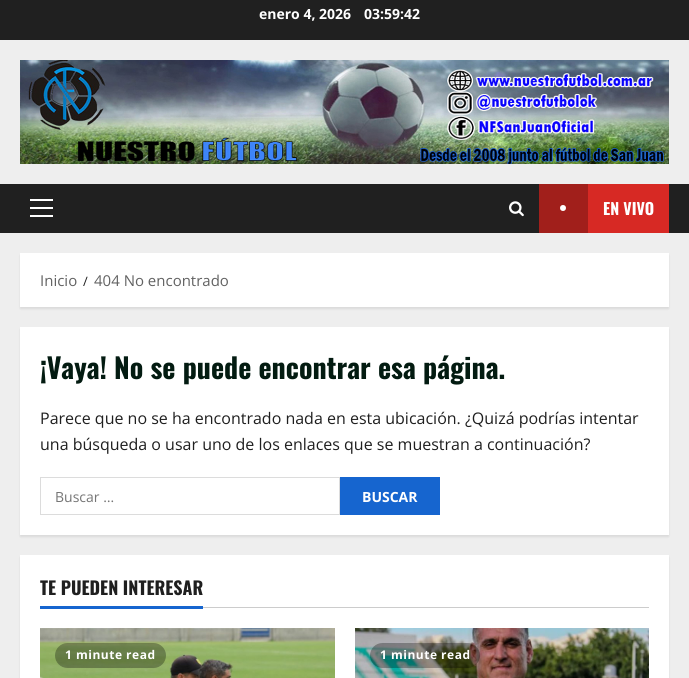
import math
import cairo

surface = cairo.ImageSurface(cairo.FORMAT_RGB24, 689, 678)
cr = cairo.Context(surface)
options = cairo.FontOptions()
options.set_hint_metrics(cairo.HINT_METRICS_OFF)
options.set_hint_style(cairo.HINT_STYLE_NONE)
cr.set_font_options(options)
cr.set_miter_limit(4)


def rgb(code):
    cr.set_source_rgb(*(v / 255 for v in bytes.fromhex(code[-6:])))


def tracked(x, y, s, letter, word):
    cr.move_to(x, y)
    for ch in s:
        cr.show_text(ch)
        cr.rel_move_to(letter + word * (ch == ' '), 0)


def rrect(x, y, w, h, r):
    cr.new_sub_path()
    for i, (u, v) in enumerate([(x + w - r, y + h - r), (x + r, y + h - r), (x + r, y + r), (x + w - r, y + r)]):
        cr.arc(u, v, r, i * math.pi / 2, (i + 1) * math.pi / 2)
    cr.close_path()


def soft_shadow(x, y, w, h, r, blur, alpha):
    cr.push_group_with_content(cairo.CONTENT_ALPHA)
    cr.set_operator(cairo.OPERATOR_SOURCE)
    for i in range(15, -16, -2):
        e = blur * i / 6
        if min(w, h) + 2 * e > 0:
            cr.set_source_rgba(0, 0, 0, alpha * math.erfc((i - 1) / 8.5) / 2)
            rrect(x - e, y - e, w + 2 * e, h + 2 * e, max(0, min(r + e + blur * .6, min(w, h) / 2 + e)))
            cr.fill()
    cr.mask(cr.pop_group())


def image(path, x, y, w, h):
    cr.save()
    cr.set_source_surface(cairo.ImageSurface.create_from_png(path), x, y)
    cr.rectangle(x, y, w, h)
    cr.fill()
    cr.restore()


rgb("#eeeeee")
cr.paint()
rgb("#202020")
cr.rectangle(0, 0, 689, 40)
cr.fill()
image("img/1.png", 20, 60, 649, 104)
for x, y, w, h, color in [
    (0, 184, 689, 49, "#202020"),
    (30, 207, 23, 2, "#ffffff"),
    (30, 199, 23, 2, "#ffffff"),
    (30, 215, 23, 2, "#ffffff"),
]:
    rgb(color)
    cr.rectangle(x, y, w, h)
    cr.fill()
image("img/2.png", 509, 201, 15, 16)
rgb("#d72924")
cr.rectangle(588, 184, 81, 49)
cr.fill()
rgb("#a11f1b")
cr.rectangle(539, 184, 49, 49)
cr.fill()
rgb("#ffffff")
cr.arc(563, 208, 3, 0, 2 * math.pi)
cr.fill()
rgb("#000000")
soft_shadow(20, 255, 649, 54, 0, 1, 0.08)
rgb("#ffffff")
cr.rectangle(20, 253, 649, 54)
cr.fill()
rgb("#000000")
soft_shadow(20, 329, 649, 208, 0, 1, 0.08)
rgb("#ffffff")
cr.rectangle(20, 327, 649, 208)
cr.fill()
cr.rectangle(40.5, 477.5, 299, 37)
rgb("#dcdcdc")
cr.set_line_width(1)
cr.stroke()
rgb("#1665cf")
cr.rectangle(340, 477, 100, 38)
cr.fill()
rgb("#000000")
soft_shadow(20, 557, 649, 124, 0, 1, 0.08)
for x, y, w, h, color in [
    (20, 555, 649, 123, "#ffffff"),
    (203, 607, 446, 1, "#cccccc"),
    (40, 606, 163, 3, "#1665cf"),
]:
    rgb(color)
    cr.rectangle(x, y, w, h)
    cr.fill()
image("img/3.png", 40, 628, 295, 50)
cr.set_source_rgba(0, 0, 0, 0.3)
rrect(55, 643, 111, 25, 12.5)
cr.fill()
image("img/4.png", 355, 628, 294, 50)
rrect(370, 643, 110, 25, 12.5)
cr.fill()
cr.select_font_face("Open Sans", cairo.FONT_SLANT_NORMAL, cairo.FONT_WEIGHT_BOLD)
cr.set_font_size(14)
rgb("#ffffff")
cr.move_to(259, 19)
cr.show_text("enero 4, 2026")
cr.move_to(364, 19)
cr.show_text("03:59:42")
cr.select_font_face("Oswald", cairo.FONT_SLANT_NORMAL, cairo.FONT_WEIGHT_BOLD)
cr.set_font_size(16)
cr.move_to(603, 215)
cr.show_text("EN VIVO")
cr.select_font_face("Open Sans")
cr.set_font_size(15)
rgb("#626262")
cr.move_to(40, 286)
cr.show_text("Inicio")
cr.set_font_size(13)
rgb("#1f1f1f")
cr.move_to(83, 286)
cr.show_text("/")
cr.set_font_size(15)
rgb("#626262")
cr.move_to(94, 286)
cr.show_text("404 No encontrado")
cr.select_font_face("Oswald", cairo.FONT_SLANT_NORMAL, cairo.FONT_WEIGHT_BOLD)
cr.set_font_size(28)
rgb("#031b11")
cr.move_to(40, 379)
cr.show_text("¡Vaya! No se puede encontrar esa página.")
cr.select_font_face("Open Sans")
cr.set_font_size(16)
rgb("#1f1f1f")
cr.move_to(40, 424)
cr.show_text("Parece que no se ha encontrado nada en esta ubicación. ¿Quizá podrías intentar")
cr.move_to(40, 450)
cr.show_text("una búsqueda o usar uno de los enlaces que se muestran a continuación?")
cr.set_font_size(14)
rgb("#757575")
cr.move_to(55, 502)
cr.show_text("Buscar …")
cr.select_font_face("Open Sans", cairo.FONT_SLANT_NORMAL, cairo.FONT_WEIGHT_BOLD)
rgb("#ffffff")
cr.move_to(362, 502)
cr.show_text("BUSCAR")
cr.select_font_face("Oswald", cairo.FONT_SLANT_NORMAL, cairo.FONT_WEIGHT_BOLD)
cr.set_font_size(18)
rgb("#1f1f1f")
cr.move_to(40, 595)
cr.show_text("TE PUEDEN INTERESAR")
cr.select_font_face("Open Sans", cairo.FONT_SLANT_NORMAL, cairo.FONT_WEIGHT_BOLD)
cr.set_font_size(12)
rgb("#ffffff")
tracked(65, 659, "1 minute read", 0.5, 0)
tracked(380, 659, "1 minute read", 0.5, 0)
surface.write_to_png("page.png")
